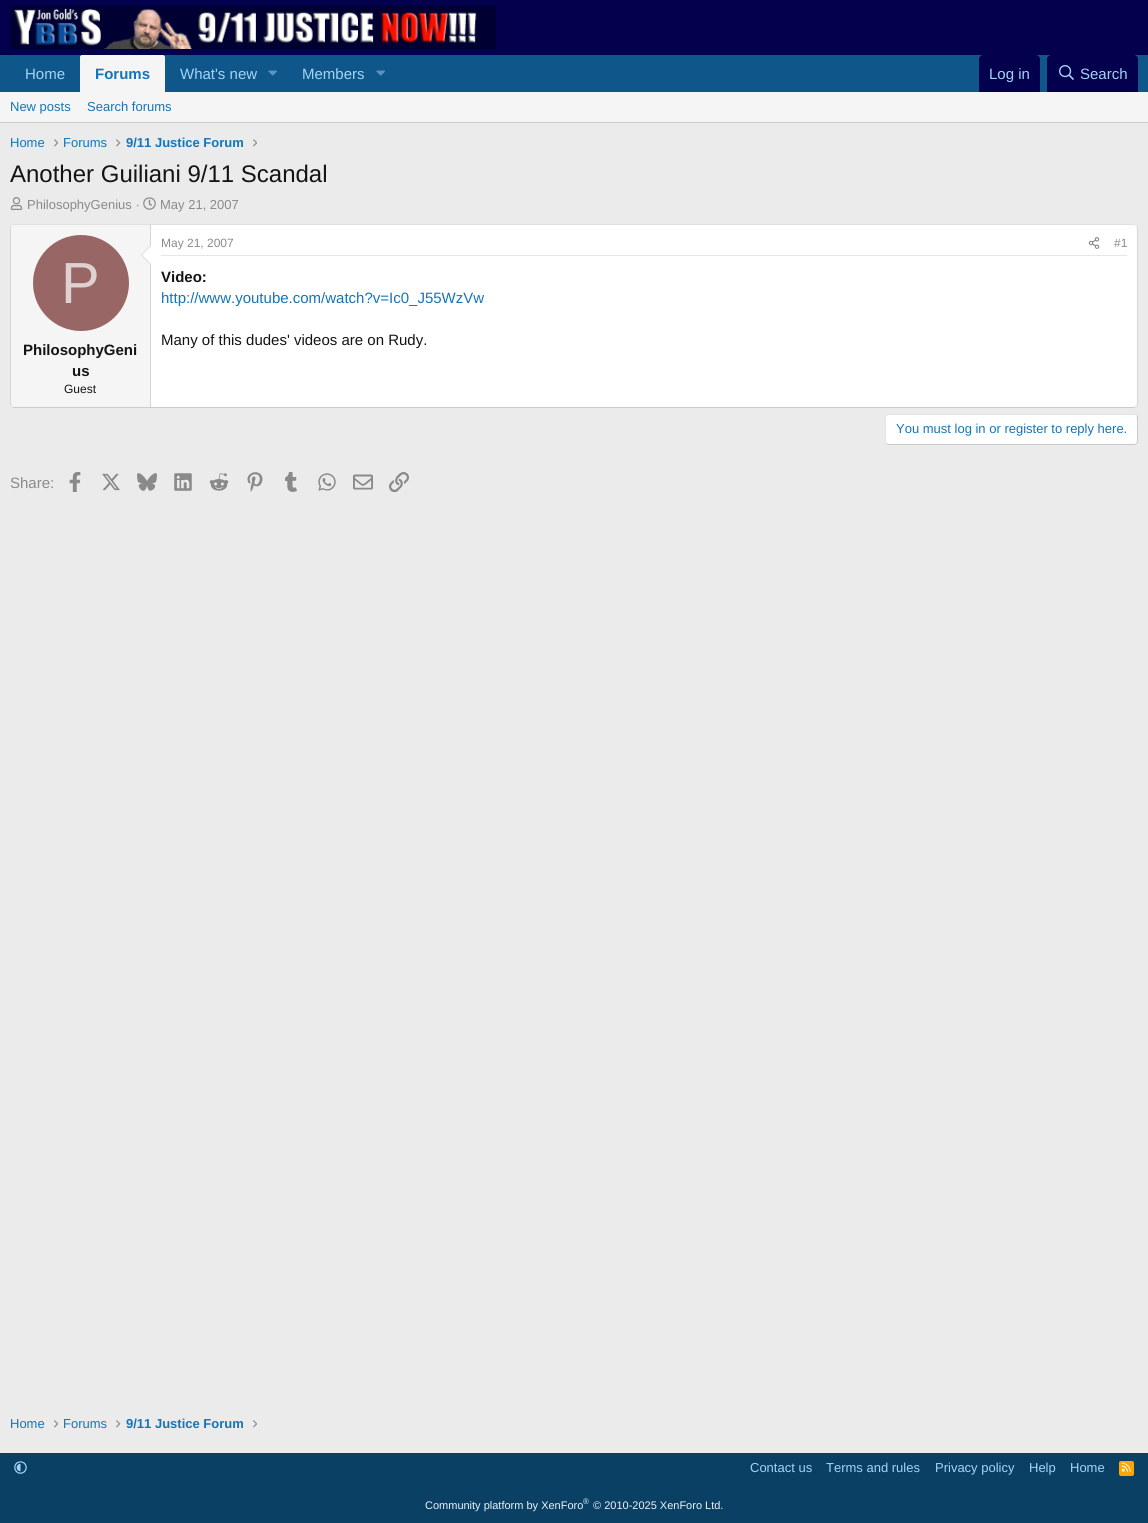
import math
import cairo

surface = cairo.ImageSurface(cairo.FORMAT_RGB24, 1148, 1523)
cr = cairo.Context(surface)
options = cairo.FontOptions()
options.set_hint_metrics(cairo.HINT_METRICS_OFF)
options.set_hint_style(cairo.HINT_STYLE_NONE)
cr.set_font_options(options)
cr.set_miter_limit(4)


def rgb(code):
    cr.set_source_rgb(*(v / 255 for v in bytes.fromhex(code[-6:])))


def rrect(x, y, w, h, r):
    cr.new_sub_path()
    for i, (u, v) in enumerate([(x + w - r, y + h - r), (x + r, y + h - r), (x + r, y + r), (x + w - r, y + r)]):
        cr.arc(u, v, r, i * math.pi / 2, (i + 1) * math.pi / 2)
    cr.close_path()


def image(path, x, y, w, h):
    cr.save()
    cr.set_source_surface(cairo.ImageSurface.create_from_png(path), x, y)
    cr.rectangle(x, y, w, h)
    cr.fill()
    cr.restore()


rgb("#ebebeb")
cr.paint()
rgb("#03004d")
cr.rectangle(0, 0, 1148, 55)
cr.fill()
image("img/1.png", 10, 6, 486, 43)
rgb("#0f578a")
cr.rectangle(0, 55, 1148, 37)
cr.fill()
rgb("#f5f5f5")
cr.new_path()
cr.move_to(82, 55)
cr.line_to(163, 55)
cr.curve_to(164, 55, 165, 56, 165, 57)
cr.line_to(165, 92)
cr.line_to(80, 92)
cr.line_to(80, 57)
cr.curve_to(80, 56, 81, 55, 82, 55)
cr.close_path()
cr.fill()
image("img/2.png", 268, 70, 9, 6)
image("img/2.png", 376, 70, 9, 6)
rgb("#03004d")
cr.new_path()
cr.move_to(983, 55)
cr.line_to(1036, 55)
cr.curve_to(1038, 55, 1040, 57, 1040, 59)
cr.line_to(1040, 92)
cr.line_to(979, 92)
cr.line_to(979, 59)
cr.curve_to(979, 57, 981, 55, 983, 55)
cr.close_path()
cr.fill()
cr.new_path()
cr.move_to(1051, 55)
cr.line_to(1134, 55)
cr.curve_to(1136, 55, 1138, 57, 1138, 59)
cr.line_to(1138, 92)
cr.line_to(1047, 92)
cr.line_to(1047, 59)
cr.curve_to(1047, 57, 1049, 55, 1051, 55)
cr.close_path()
cr.fill()
image("img/3.png", 1059, 65, 15, 15)
rgb("#f5f5f5")
cr.rectangle(0, 92, 1148, 30)
cr.fill()
rgb("#cccccc")
cr.rectangle(0, 122, 1148, 1)
cr.fill()
image("img/4.png", 54, 139, 4, 8)
image("img/5.png", 116, 139, 5, 8)
image("img/4.png", 253, 139, 4, 8)
image("img/6.png", 10, 197, 13, 13)
image("img/7.png", 143, 197, 13, 13)
rgb("#ffffff")
rrect(10, 224, 1128, 184, 4)
cr.fill()
cr.new_path()
cr.move_to(11.5, 225.5)
cr.line_to(14, 224.5)
cr.line_to(1134, 224.5)
cr.line_to(1136.5, 225.5)
rgb("#e0e0e0")
cr.set_line_width(1)
cr.stroke()
cr.new_path()
cr.move_to(1136.5, 225.5)
cr.line_to(1137.5, 228)
cr.line_to(1137.5, 404.5)
cr.line_to(1136.5, 406.5)
rgb("#d6d6d6")
cr.stroke()
cr.new_path()
cr.move_to(1136.5, 406.5)
cr.line_to(1134, 407.5)
cr.line_to(14, 407.5)
cr.line_to(11.5, 406.5)
rgb("#cccccc")
cr.stroke()
cr.new_path()
cr.move_to(11.5, 406.5)
cr.line_to(10.5, 404.5)
cr.line_to(10.5, 257.5)
cr.line_to(10.5, 228)
cr.line_to(11.5, 225.5)
rgb("#d6d6d6")
cr.stroke()
rgb("#f5f5f5")
cr.new_path()
cr.move_to(14, 225)
cr.line_to(151, 225)
cr.line_to(151, 407)
cr.line_to(14, 407)
cr.curve_to(12.5, 407, 11, 405.5, 11, 404)
cr.line_to(11, 228)
cr.curve_to(11, 226.5, 12.5, 225, 14, 225)
cr.close_path()
cr.fill()
rgb("#d6d6d6")
cr.rectangle(150, 225, 1, 182)
cr.fill()
cr.new_path()
cr.move_to(151, 245)
cr.line_to(151, 265)
cr.line_to(141, 255)
cr.close_path()
cr.fill()
rgb("#ffffff")
cr.new_path()
cr.move_to(151, 246)
cr.line_to(151, 264)
cr.line_to(142, 255)
cr.close_path()
cr.fill()
rgb("#996666")
cr.arc(81, 283, 48, 0, 2 * math.pi)
cr.fill()
rgb("#e6e6e6")
cr.rectangle(161, 255, 966, 1)
cr.fill()
image("img/8.png", 1088, 237, 12, 12)
rgb("#ffffff")
rrect(885, 414, 253, 31, 4)
cr.fill()
cr.new_path()
cr.move_to(1136.5, 415.5)
cr.curve_to(1137, 416, 1137.5, 417, 1137.5, 418)
cr.line_to(1137.5, 441)
cr.curve_to(1137.5, 442, 1137, 443, 1136.5, 443.5)
cr.curve_to(1136, 444, 1135, 444.5, 1134, 444.5)
cr.line_to(889, 444.5)
cr.curve_to(888, 444.5, 887, 444, 886.5, 443.5)
rgb("#c9c9c9")
cr.stroke()
cr.new_path()
cr.move_to(886.5, 443.5)
cr.curve_to(886, 443, 885.5, 442, 885.5, 441)
cr.line_to(885.5, 418)
cr.curve_to(885.5, 417, 886, 416, 886.5, 415.5)
cr.curve_to(887, 415, 888, 414.5, 889, 414.5)
cr.line_to(1134, 414.5)
cr.curve_to(1135, 414.5, 1136, 415, 1136.5, 415.5)
rgb("#e3e3e3")
cr.stroke()
image("img/9.png", 69, 472, 12, 20)
image("img/10.png", 102, 473, 18, 18)
image("img/11.png", 137, 473, 20, 18)
image("img/12.png", 174, 473, 18, 18)
image("img/13.png", 209, 473, 20, 18)
image("img/14.png", 247, 472, 16, 20)
image("img/15.png", 285, 472, 12, 20)
image("img/16.png", 318, 473, 18, 18)
image("img/17.png", 353, 474, 20, 16)
image("img/18.png", 389, 472, 20, 20)
image("img/4.png", 54, 1420, 4, 8)
image("img/5.png", 116, 1420, 5, 8)
image("img/4.png", 253, 1420, 4, 8)
rgb("#0b4065")
cr.rectangle(0, 1453, 1148, 70)
cr.fill()
image("img/19.png", 14, 1461, 13, 13)
rgb("#ffa500")
rrect(1119, 1461, 15, 15, 2)
cr.fill()
image("img/20.png", 1121, 1462, 10, 10)
cr.select_font_face("Liberation Sans")
cr.set_font_size(15)
rgb("#a3d4f5")
cr.move_to(25, 79)
cr.show_text("Home")
cr.select_font_face("Liberation Sans", cairo.FONT_SLANT_NORMAL, cairo.FONT_WEIGHT_BOLD)
rgb("#1474b8")
cr.move_to(95, 79)
cr.show_text("Forums")
cr.select_font_face("Liberation Sans")
rgb("#a3d4f5")
for x, y, s in [
    (180, 79, "What's new"),
    (302, 79, "Members"),
    (989, 79, "Log in"),
    (1080, 79, "Search"),
]:
    cr.move_to(x, y)
    cr.show_text(s)
cr.set_font_size(13)
rgb("#1474b8")
for x, y, s in [
    (10, 111, "New posts"),
    (87, 111, "Search forums"),
    (10, 147, "Home"),
    (63, 147, "Forums"),
]:
    cr.move_to(x, y)
    cr.show_text(s)
cr.select_font_face("Liberation Sans", cairo.FONT_SLANT_NORMAL, cairo.FONT_WEIGHT_BOLD)
cr.move_to(126, 147)
cr.show_text("9/11 Justice Forum")
cr.select_font_face("Liberation Sans")
cr.set_font_size(24)
rgb("#141414")
cr.move_to(10, 182)
cr.show_text("Another Guiliani 9/11 Scandal")
cr.set_font_size(13)
rgb("#8a8a8a")
cr.move_to(27, 209)
cr.show_text("PhilosophyGenius ·")
cr.move_to(160, 209)
cr.show_text("May 21, 2007")
cr.set_font_size(58)
rgb("#e0d1d1")
cr.move_to(61, 303)
cr.show_text("P")
cr.select_font_face("Liberation Sans", cairo.FONT_SLANT_NORMAL, cairo.FONT_WEIGHT_BOLD)
cr.set_font_size(15)
rgb("#141414")
cr.move_to(23, 355)
cr.show_text("PhilosophyGeni")
cr.move_to(72, 376)
cr.show_text("us")
cr.select_font_face("Liberation Sans")
cr.set_font_size(12)
cr.move_to(64, 393)
cr.show_text("Guest")
rgb("#8a8a8a")
cr.move_to(161, 247)
cr.show_text("May 21, 2007")
cr.move_to(1114, 247)
cr.show_text("#1")
cr.select_font_face("Liberation Sans", cairo.FONT_SLANT_NORMAL, cairo.FONT_WEIGHT_BOLD)
cr.set_font_size(15)
rgb("#141414")
cr.move_to(161, 282)
cr.show_text("Video:")
cr.select_font_face("Liberation Sans")
rgb("#1474b8")
cr.move_to(161, 303)
cr.show_text("http://www.youtube.com/watch?v=Ic0_J55WzVw")
rgb("#141414")
cr.move_to(161, 345)
cr.show_text("Many of this dudes' videos are on Rudy.")
cr.set_font_size(13)
rgb("#1474b8")
cr.move_to(896, 433)
cr.show_text("You must log in or register to reply here.")
cr.set_font_size(15)
rgb("#8a8a8a")
cr.move_to(10, 488)
cr.show_text("Share:")
cr.set_font_size(13)
rgb("#1474b8")
cr.move_to(10, 1428)
cr.show_text("Home")
cr.move_to(63, 1428)
cr.show_text("Forums")
cr.select_font_face("Liberation Sans", cairo.FONT_SLANT_NORMAL, cairo.FONT_WEIGHT_BOLD)
cr.move_to(126, 1428)
cr.show_text("9/11 Justice Forum")
cr.select_font_face("Liberation Sans")
rgb("#a3d4f5")
for x, y, s in [
    (750, 1472, "Contact us"),
    (826, 1472, "Terms and rules"),
    (935, 1472, "Privacy policy"),
    (1029, 1472, "Help"),
    (1070, 1472, "Home"),
]:
    cr.move_to(x, y)
    cr.show_text(s)
cr.set_font_size(11)
rgb("#e8f4fc")
cr.move_to(425, 1509)
cr.show_text("Community platform by XenForo")
cr.set_font_size(8)
cr.move_to(583, 1504)
cr.show_text("®")
cr.set_font_size(11)
cr.move_to(593, 1509)
cr.show_text("© 2010-2025 XenForo Ltd.")
surface.write_to_png("page.png")
